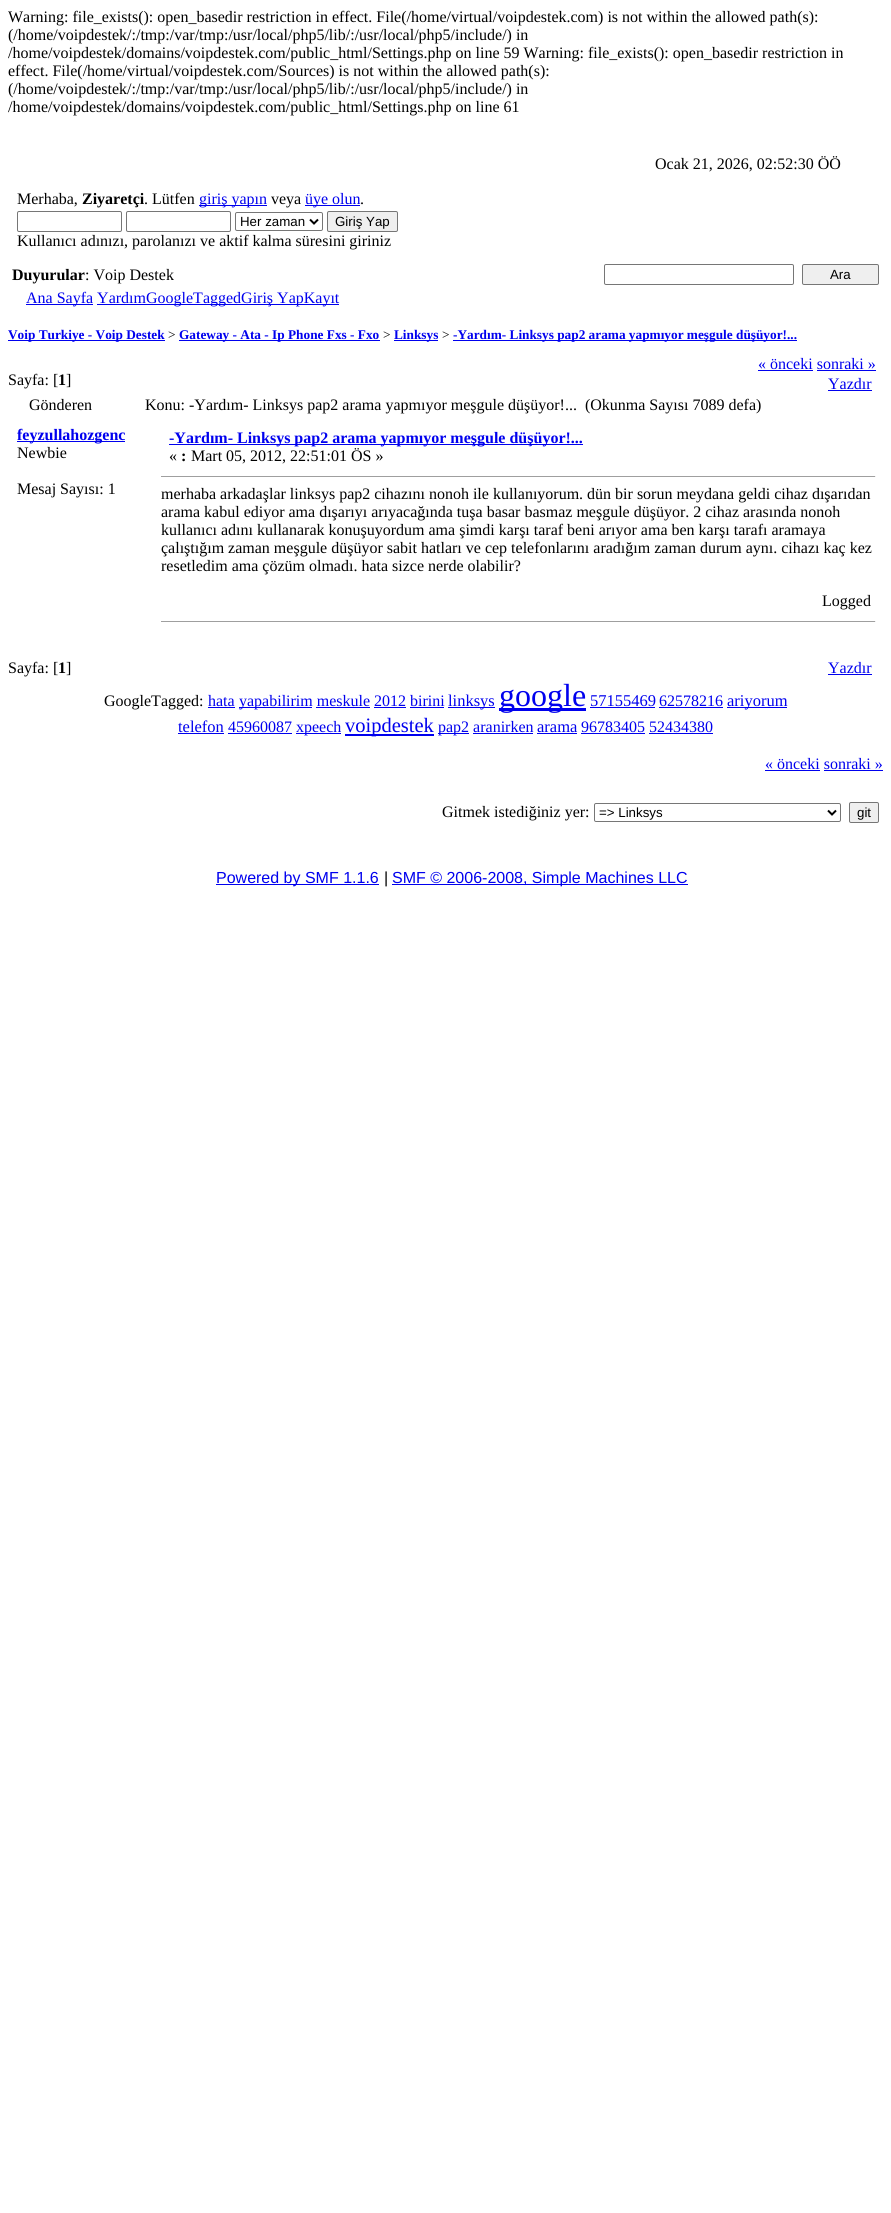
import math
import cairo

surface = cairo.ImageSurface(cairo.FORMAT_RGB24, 891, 2213)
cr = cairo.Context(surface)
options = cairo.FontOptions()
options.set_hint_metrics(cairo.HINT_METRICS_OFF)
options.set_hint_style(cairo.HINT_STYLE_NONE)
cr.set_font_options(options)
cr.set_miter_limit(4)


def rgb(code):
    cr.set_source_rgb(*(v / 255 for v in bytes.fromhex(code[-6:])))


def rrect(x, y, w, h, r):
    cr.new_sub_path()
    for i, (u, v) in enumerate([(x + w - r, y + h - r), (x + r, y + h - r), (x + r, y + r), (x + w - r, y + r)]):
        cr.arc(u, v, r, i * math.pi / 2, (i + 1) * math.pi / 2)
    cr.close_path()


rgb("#ffffff")
cr.paint()
rgb("#0000ee")
cr.rectangle(199, 205, 68, 1)
cr.fill()
cr.rectangle(305, 205, 55, 1)
cr.fill()
rrect(17.5, 211.5, 104, 20, 1.5)
rgb("#767676")
cr.set_line_width(1)
cr.stroke()
rrect(126.5, 211.5, 104, 20, 1.5)
cr.stroke()
rrect(235.5, 212.5, 87, 18, 1.5)
cr.stroke()
cr.new_path()
cr.move_to(310, 219.5)
cr.line_to(314, 223.5)
cr.line_to(318, 219.5)
rgb("#000000")
cr.set_line_width(2)
cr.stroke()
rgb("#efefef")
rrect(327.5, 211.5, 70, 20, 1.5)
cr.fill_preserve()
rgb("#767676")
cr.set_line_width(1)
cr.stroke()
rrect(604.5, 264.5, 189, 20, 1.5)
cr.stroke()
rgb("#efefef")
rrect(802.5, 264.5, 76, 20, 1.5)
cr.fill_preserve()
rgb("#767676")
cr.stroke()
for x, y, w, h, color in [
    (26, 304, 67, 1, "#0000ee"),
    (97, 304, 242, 1, "#0000ee"),
    (8, 340, 157, 1, "#0000ee"),
    (179, 340, 201, 1, "#0000ee"),
    (394, 340, 44, 1, "#0000ee"),
    (453, 340, 344, 1, "#0000ee"),
    (758, 370, 55, 1, "#0000ee"),
    (817, 370, 59, 1, "#0000ee"),
    (828, 390, 44, 1, "#0000ee"),
    (17, 441, 108, 1, "#0000ee"),
    (169, 444, 414, 1, "#0000ee"),
    (161, 476, 715, 1, "#9f9f9f"),
    (875, 476, 1, 1, "#eeeeee"),
    (161, 621, 715, 1, "#9f9f9f"),
    (875, 621, 1, 1, "#eeeeee"),
    (828, 674, 44, 1, "#0000ee"),
    (208, 707, 27, 1, "#0000ee"),
    (239, 707, 73, 1, "#0000ee"),
    (448, 707, 47, 1, "#0000ee"),
    (499, 708, 87, 3, "#0000ee"),
    (590, 707, 65, 1, "#0000ee"),
    (659, 707, 64, 1, "#0000ee"),
    (727, 707, 60, 1, "#0000ee"),
    (316, 707, 54, 1, "#0000ee"),
    (374, 707, 32, 1, "#0000ee"),
    (410, 707, 34, 1, "#0000ee"),
    (178, 733, 46, 1, "#0000ee"),
    (228, 733, 64, 1, "#0000ee"),
    (296, 733, 45, 1, "#0000ee"),
    (345, 734, 89, 2, "#0000ee"),
    (438, 733, 31, 1, "#0000ee"),
    (537, 733, 40, 1, "#0000ee"),
    (581, 733, 64, 1, "#0000ee"),
    (473, 733, 60, 1, "#0000ee"),
    (649, 733, 64, 1, "#0000ee"),
    (765, 770, 55, 1, "#0000ee"),
    (824, 770, 59, 1, "#0000ee"),
]:
    rgb(color)
    cr.rectangle(x, y, w, h)
    cr.fill()
rrect(594.5, 803.5, 246, 18, 1.5)
rgb("#767676")
cr.stroke()
cr.new_path()
cr.move_to(828, 810.5)
cr.line_to(832, 814.5)
cr.line_to(836, 810.5)
rgb("#000000")
cr.set_line_width(2)
cr.stroke()
rgb("#efefef")
rrect(849.5, 802.5, 29, 20, 1.5)
cr.fill_preserve()
rgb("#767676")
cr.set_line_width(1)
cr.stroke()
rgb("#0000ee")
cr.rectangle(216, 884, 163, 1)
cr.fill()
cr.rectangle(392, 884, 296, 1)
cr.fill()
cr.select_font_face("Liberation Serif")
cr.set_font_size(16)
rgb("#000000")
for x, y, s in [
    (8, 22, "Warning: file_exists(): open_basedir restriction in effect. File(/home/virtual/voipdestek.com) is not within the allowed path(s):"),
    (8, 40, "(/home/voipdestek/:/tmp:/var/tmp:/usr/local/php5/lib/:/usr/local/php5/include/) in"),
    (8, 58, "/home/voipdestek/domains/voipdestek.com/public_html/Settings.php on line 59 Warning: file_exists(): open_basedir restriction in"),
    (8, 76, "effect. File(/home/virtual/voipdestek.com/Sources) is not within the allowed path(s):"),
    (8, 94, "(/home/voipdestek/:/tmp:/var/tmp:/usr/local/php5/lib/:/usr/local/php5/include/) in"),
    (8, 112, "/home/voipdestek/domains/voipdestek.com/public_html/Settings.php on line 61"),
    (655, 169, "Ocak 21, 2026, 02:52:30 ÖÖ"),
    (17, 204, "Merhaba,"),
]:
    cr.move_to(x, y)
    cr.show_text(s)
cr.select_font_face("Liberation Serif", cairo.FONT_SLANT_NORMAL, cairo.FONT_WEIGHT_BOLD)
cr.move_to(82, 204)
cr.show_text("Ziyaretçi")
cr.select_font_face("Liberation Serif")
cr.move_to(144, 204)
cr.show_text(". Lütfen")
rgb("#0000ee")
cr.move_to(199, 204)
cr.show_text("giriş yapın")
rgb("#000000")
cr.move_to(271, 204)
cr.show_text("veya")
rgb("#0000ee")
cr.move_to(305, 204)
cr.show_text("üye olun")
rgb("#000000")
cr.move_to(360, 204)
cr.show_text(".")
cr.select_font_face("Liberation Sans")
cr.set_font_size(13.3)
cr.move_to(240, 226)
cr.show_text("Her zaman")
cr.move_to(335, 226)
cr.show_text("Giriş Yap")
cr.select_font_face("Liberation Serif")
cr.set_font_size(16)
cr.move_to(17, 246)
cr.show_text("Kullanıcı adınızı, parolanızı ve aktif kalma süresini giriniz")
cr.select_font_face("Liberation Serif", cairo.FONT_SLANT_NORMAL, cairo.FONT_WEIGHT_BOLD)
cr.move_to(12, 280)
cr.show_text("Duyurular")
cr.select_font_face("Liberation Serif")
cr.move_to(85, 280)
cr.show_text(": Voip Destek")
cr.select_font_face("Liberation Sans")
cr.set_font_size(13.3)
cr.move_to(830, 279)
cr.show_text("Ara")
cr.select_font_face("Liberation Serif")
cr.set_font_size(16)
rgb("#0000ee")
cr.move_to(26, 303)
cr.show_text("Ana Sayfa Yardım")
cr.move_to(146, 303)
cr.show_text("GoogleTaggedGiriş YapKayıt")
cr.select_font_face("Liberation Serif", cairo.FONT_SLANT_NORMAL, cairo.FONT_WEIGHT_BOLD)
cr.set_font_size(13.3)
cr.move_to(8, 339)
cr.show_text("Voip Turkiye - Voip Destek")
cr.select_font_face("Liberation Serif")
rgb("#000000")
cr.move_to(168, 339)
cr.show_text(">")
cr.select_font_face("Liberation Serif", cairo.FONT_SLANT_NORMAL, cairo.FONT_WEIGHT_BOLD)
rgb("#0000ee")
cr.move_to(179, 339)
cr.show_text("Gateway - Ata - Ip Phone Fxs - Fxo")
cr.select_font_face("Liberation Serif")
rgb("#000000")
cr.move_to(383, 339)
cr.show_text(">")
cr.select_font_face("Liberation Serif", cairo.FONT_SLANT_NORMAL, cairo.FONT_WEIGHT_BOLD)
rgb("#0000ee")
cr.move_to(394, 339)
cr.show_text("Linksys")
cr.select_font_face("Liberation Serif")
rgb("#000000")
cr.move_to(442, 339)
cr.show_text(">")
cr.select_font_face("Liberation Serif", cairo.FONT_SLANT_NORMAL, cairo.FONT_WEIGHT_BOLD)
rgb("#0000ee")
cr.move_to(453, 339)
cr.show_text("-Yardım- Linksys pap2 arama yapmıyor meşgule düşüyor!...")
cr.select_font_face("Liberation Serif")
cr.set_font_size(16)
rgb("#000000")
cr.move_to(8, 385)
cr.show_text("Sayfa: [")
cr.select_font_face("Liberation Serif", cairo.FONT_SLANT_NORMAL, cairo.FONT_WEIGHT_BOLD)
cr.move_to(58, 385)
cr.show_text("1")
cr.select_font_face("Liberation Serif")
cr.move_to(66, 385)
cr.show_text("]")
rgb("#0000ee")
cr.move_to(758, 369)
cr.show_text("« önceki sonraki »")
cr.move_to(828, 389)
cr.show_text("Yazdır")
rgb("#000000")
cr.move_to(29, 410)
cr.show_text("Gönderen")
cr.move_to(145, 410)
cr.show_text("Konu: -Yardım- Linksys pap2 arama yapmıyor meşgule düşüyor!...  (Okunma Sayısı 7089 defa)")
cr.select_font_face("Liberation Serif", cairo.FONT_SLANT_NORMAL, cairo.FONT_WEIGHT_BOLD)
rgb("#0000ee")
cr.move_to(17, 440)
cr.show_text("feyzullahozgenc")
cr.select_font_face("Liberation Serif")
rgb("#000000")
cr.move_to(17, 458)
cr.show_text("Newbie")
cr.move_to(17, 494)
cr.show_text("Mesaj Sayısı: 1")
cr.select_font_face("Liberation Serif", cairo.FONT_SLANT_NORMAL, cairo.FONT_WEIGHT_BOLD)
rgb("#0000ee")
cr.move_to(169, 443)
cr.show_text("-Yardım- Linksys pap2 arama yapmıyor meşgule düşüyor!...")
cr.select_font_face("Liberation Serif")
rgb("#000000")
cr.move_to(169, 461)
cr.show_text("«")
cr.select_font_face("Liberation Serif", cairo.FONT_SLANT_NORMAL, cairo.FONT_WEIGHT_BOLD)
cr.move_to(181, 461)
cr.show_text(":")
cr.select_font_face("Liberation Serif")
for x, y, s in [
    (191, 461, "Mart 05, 2012, 22:51:01 ÖS »"),
    (161, 499, "merhaba arkadaşlar linksys pap2 cihazını nonoh ile kullanıyorum. dün bir sorun meydana geldi cihaz dışarıdan"),
    (161, 517, "arama kabul ediyor ama dışarıyı arıyacağında tuşa basar basmaz meşgule düşüyor. 2 cihaz arasında nonoh"),
    (161, 535, "kullanıcı adını kullanarak konuşuyordum ama şimdi karşı taraf beni arıyor ama ben karşı tarafı aramaya"),
    (161, 553, "çalıştığım zaman meşgule düşüyor sabit hatları ve cep telefonlarını aradığım zaman durum aynı. cihazı kaç kez"),
    (161, 571, "resetledim ama çözüm olmadı. hata sizce nerde olabilir?"),
    (822, 606, "Logged"),
    (8, 673, "Sayfa: ["),
]:
    cr.move_to(x, y)
    cr.show_text(s)
cr.select_font_face("Liberation Serif", cairo.FONT_SLANT_NORMAL, cairo.FONT_WEIGHT_BOLD)
cr.move_to(58, 673)
cr.show_text("1")
cr.select_font_face("Liberation Serif")
cr.move_to(66, 673)
cr.show_text("]")
rgb("#0000ee")
cr.move_to(828, 673)
cr.show_text("Yazdır")
rgb("#000000")
cr.move_to(104, 706)
cr.show_text("GoogleTagged:")
rgb("#0000ee")
cr.move_to(208, 706)
cr.show_text("hata")
cr.move_to(239, 706)
cr.show_text("yapabilirim meskule 2012 birini")
cr.set_font_size(16.5)
cr.move_to(448, 706)
cr.show_text("linksys")
cr.set_font_size(32)
cr.move_to(499, 706)
cr.show_text("google")
cr.set_font_size(16.5)
cr.move_to(590, 706)
cr.show_text("57155469")
cr.set_font_size(16)
cr.move_to(659, 706)
cr.show_text("62578216")
cr.set_font_size(16.5)
cr.move_to(727, 706)
cr.show_text("ariyorum")
cr.move_to(178, 732)
cr.show_text("telefon")
cr.set_font_size(16)
cr.move_to(228, 732)
cr.show_text("45960087")
cr.move_to(296, 732)
cr.show_text("xpeech")
cr.set_font_size(20.5)
cr.move_to(345, 732)
cr.show_text("voipdestek")
cr.set_font_size(16)
cr.move_to(438, 732)
cr.show_text("pap2 aranirken")
cr.set_font_size(16.5)
cr.move_to(537, 732)
cr.show_text("arama")
cr.set_font_size(16)
cr.move_to(581, 732)
cr.show_text("96783405 52434380")
cr.move_to(765, 769)
cr.show_text("« önceki sonraki »")
rgb("#000000")
cr.move_to(442, 817)
cr.show_text("Gitmek istediğiniz yer:")
cr.select_font_face("Liberation Sans")
cr.set_font_size(13.3)
cr.move_to(599, 817)
cr.show_text("=> Linksys")
cr.move_to(857, 817)
cr.show_text("git")
cr.set_font_size(16)
rgb("#0000ee")
cr.move_to(216, 883)
cr.show_text("Powered by SMF 1.1.6")
rgb("#000000")
cr.move_to(384, 883)
cr.show_text("|")
rgb("#0000ee")
cr.move_to(392, 883)
cr.show_text("SMF © 2006-2008, Simple Machines LLC")
surface.write_to_png("page.png")
